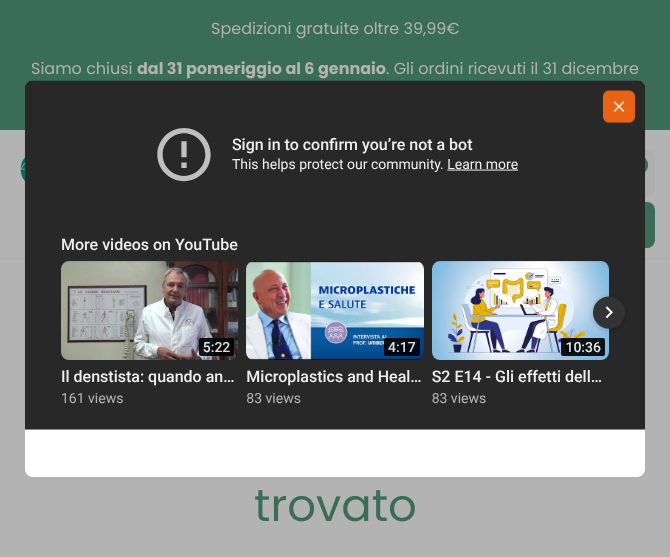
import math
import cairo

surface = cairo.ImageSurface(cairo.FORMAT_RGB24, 670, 557)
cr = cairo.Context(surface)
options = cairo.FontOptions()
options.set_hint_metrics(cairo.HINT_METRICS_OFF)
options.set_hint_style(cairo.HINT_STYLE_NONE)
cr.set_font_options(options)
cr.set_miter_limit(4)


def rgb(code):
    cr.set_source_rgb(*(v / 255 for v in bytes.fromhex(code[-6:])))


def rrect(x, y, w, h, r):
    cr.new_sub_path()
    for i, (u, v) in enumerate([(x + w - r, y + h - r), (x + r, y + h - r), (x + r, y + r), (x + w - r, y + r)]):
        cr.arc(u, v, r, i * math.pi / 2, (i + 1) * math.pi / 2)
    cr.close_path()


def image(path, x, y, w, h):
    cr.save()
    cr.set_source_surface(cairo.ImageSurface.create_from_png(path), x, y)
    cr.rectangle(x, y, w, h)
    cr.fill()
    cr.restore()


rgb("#b3b3b3")
cr.paint()
rgb("#adaeac")
cr.rectangle(0, 258, 670, 2)
cr.fill()
rgb("#3a6c5a")
cr.rectangle(0, 0, 670, 130)
cr.fill()
image("img/1.png", 20, 157, 5, 24)
rgb("#aeaeae")
rrect(255, 150, 400, 47, 8)
cr.fill()
rgb("#3a6c5a")
cr.arc(638, 165, 10, 0, 2 * math.pi)
cr.fill()
rrect(547, 202, 108, 46, 8)
cr.fill()
rgb("#ffffff")
rrect(25, 81, 620, 396, 8)
cr.fill()
image("img/2.png", 24, 80, 622, 350)
image("img/3.png", 603, 90, 32, 34)
cr.select_font_face("Poppins")
cr.set_font_size(16)
rgb("#b3b3b3")
cr.move_to(211, 34)
cr.show_text("Spedizioni gratuite oltre 39,99€")
cr.move_to(31, 74)
cr.show_text("Siamo chiusi")
cr.select_font_face("Poppins", cairo.FONT_SLANT_NORMAL, cairo.FONT_WEIGHT_BOLD)
cr.move_to(137, 74)
cr.show_text("dal 31 pomeriggio al 6 gennaio")
cr.select_font_face("Poppins")
cr.move_to(386, 74)
cr.show_text(". Gli ordini ricevuti il 31 dicembre")
cr.set_font_size(45)
rgb("#3a6c5a")
cr.move_to(254, 521)
cr.show_text("trovato")
surface.write_to_png("page.png")
